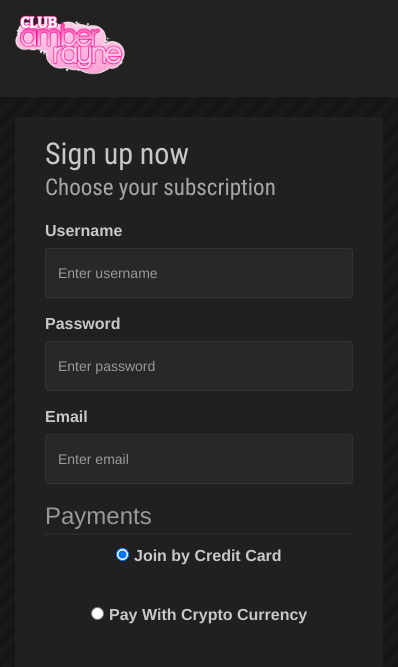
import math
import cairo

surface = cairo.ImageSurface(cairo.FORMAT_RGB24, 398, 667)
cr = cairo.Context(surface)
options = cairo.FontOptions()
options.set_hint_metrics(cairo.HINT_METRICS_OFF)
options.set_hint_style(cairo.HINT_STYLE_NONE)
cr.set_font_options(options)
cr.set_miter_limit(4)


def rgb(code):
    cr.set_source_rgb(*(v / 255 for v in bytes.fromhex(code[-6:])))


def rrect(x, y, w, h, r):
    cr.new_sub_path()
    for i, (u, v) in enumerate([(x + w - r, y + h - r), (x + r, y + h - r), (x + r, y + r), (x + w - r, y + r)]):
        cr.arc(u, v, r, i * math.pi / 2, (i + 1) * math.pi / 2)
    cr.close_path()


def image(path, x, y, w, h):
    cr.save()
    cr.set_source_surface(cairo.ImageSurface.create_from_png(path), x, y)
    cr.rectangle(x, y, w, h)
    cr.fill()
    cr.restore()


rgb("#222222")
cr.paint()
image("img/1.png", 15, 15, 110, 60)
image("img/2.png", 0, 97, 398, 570)
rgb("#202020")
cr.rectangle(15, 117, 368, 550)
cr.fill()
rgb("#282828")
rrect(45, 248, 308, 50, 4)
cr.fill()
rgb("#252525")
cr.new_path()
cr.move_to(49, 250)
cr.line_to(349, 250)
cr.curve_to(351, 250, 352, 251, 352, 253)
cr.line_to(351, 250)
cr.line_to(350, 249)
cr.line_to(49, 249)
cr.curve_to(47, 249, 46, 251, 46, 253)
cr.curve_to(46, 251, 47, 250, 49, 250)
cr.close_path()
cr.fill()
rrect(45.5, 248.5, 307, 49, 3.5)
rgb("#333333")
cr.set_line_width(1)
cr.stroke()
rgb("#282828")
rrect(45, 341, 308, 50, 4)
cr.fill()
rgb("#252525")
cr.new_path()
cr.move_to(49, 343)
cr.line_to(349, 343)
cr.curve_to(351, 343, 352, 344, 352, 346)
cr.line_to(351, 343)
cr.line_to(350, 342)
cr.line_to(49, 342)
cr.curve_to(47, 342, 46, 344, 46, 346)
cr.curve_to(46, 344, 47, 343, 49, 343)
cr.close_path()
cr.fill()
rrect(45.5, 341.5, 307, 49, 3.5)
rgb("#333333")
cr.stroke()
rgb("#282828")
rrect(45, 434, 308, 50, 4)
cr.fill()
rgb("#252525")
cr.new_path()
cr.move_to(49, 436)
cr.line_to(349, 436)
cr.curve_to(351, 436, 352, 437, 352, 439)
cr.line_to(351, 436)
cr.line_to(350, 435)
cr.line_to(49, 435)
cr.curve_to(47, 435, 46, 437, 46, 439)
cr.curve_to(46, 437, 47, 436, 49, 436)
cr.close_path()
cr.fill()
rrect(45.5, 434.5, 307, 49, 3.5)
rgb("#333333")
cr.stroke()
rgb("#292929")
cr.rectangle(45, 533, 308, 2)
cr.fill()
rgb("#ffffff")
cr.arc(122.5, 554.5, 6, 0, 2 * math.pi)
cr.fill_preserve()
rgb("#0075ff")
cr.stroke()
cr.arc(122.5, 554.5, 4, 0, 2 * math.pi)
cr.fill()
rgb("#ffffff")
cr.arc(97.5, 613.5, 6, 0, 2 * math.pi)
cr.fill_preserve()
rgb("#767676")
cr.stroke()
cr.select_font_face("Roboto Condensed")
cr.set_font_size(30)
rgb("#c8c8c8")
cr.move_to(45, 164)
cr.show_text("Sign up now")
cr.set_font_size(23)
rgb("#a7a7a7")
cr.move_to(45, 195)
cr.show_text("Choose your subscription")
cr.select_font_face("Liberation Sans", cairo.FONT_SLANT_NORMAL, cairo.FONT_WEIGHT_BOLD)
cr.set_font_size(16)
rgb("#c8c8c8")
cr.move_to(45, 236)
cr.show_text("Username")
cr.select_font_face("Liberation Sans")
cr.set_font_size(14)
rgb("#999999")
cr.move_to(58, 278)
cr.show_text("Enter username")
cr.select_font_face("Liberation Sans", cairo.FONT_SLANT_NORMAL, cairo.FONT_WEIGHT_BOLD)
cr.set_font_size(16)
rgb("#c8c8c8")
cr.move_to(45, 329)
cr.show_text("Password")
cr.select_font_face("Liberation Sans")
cr.set_font_size(14)
rgb("#999999")
cr.move_to(58, 371)
cr.show_text("Enter password")
cr.select_font_face("Liberation Sans", cairo.FONT_SLANT_NORMAL, cairo.FONT_WEIGHT_BOLD)
cr.set_font_size(16)
rgb("#c8c8c8")
cr.move_to(45, 422)
cr.show_text("Email")
cr.select_font_face("Liberation Sans")
cr.set_font_size(14)
rgb("#999999")
cr.move_to(58, 464)
cr.show_text("Enter email")
cr.set_font_size(24)
cr.move_to(45, 524)
cr.show_text("Payments")
cr.select_font_face("Liberation Sans", cairo.FONT_SLANT_NORMAL, cairo.FONT_WEIGHT_BOLD)
cr.set_font_size(16)
rgb("#c8c8c8")
cr.move_to(134, 561)
cr.show_text("Join by Credit Card")
cr.move_to(109, 620)
cr.show_text("Pay With Crypto Currency")
surface.write_to_png("page.png")
